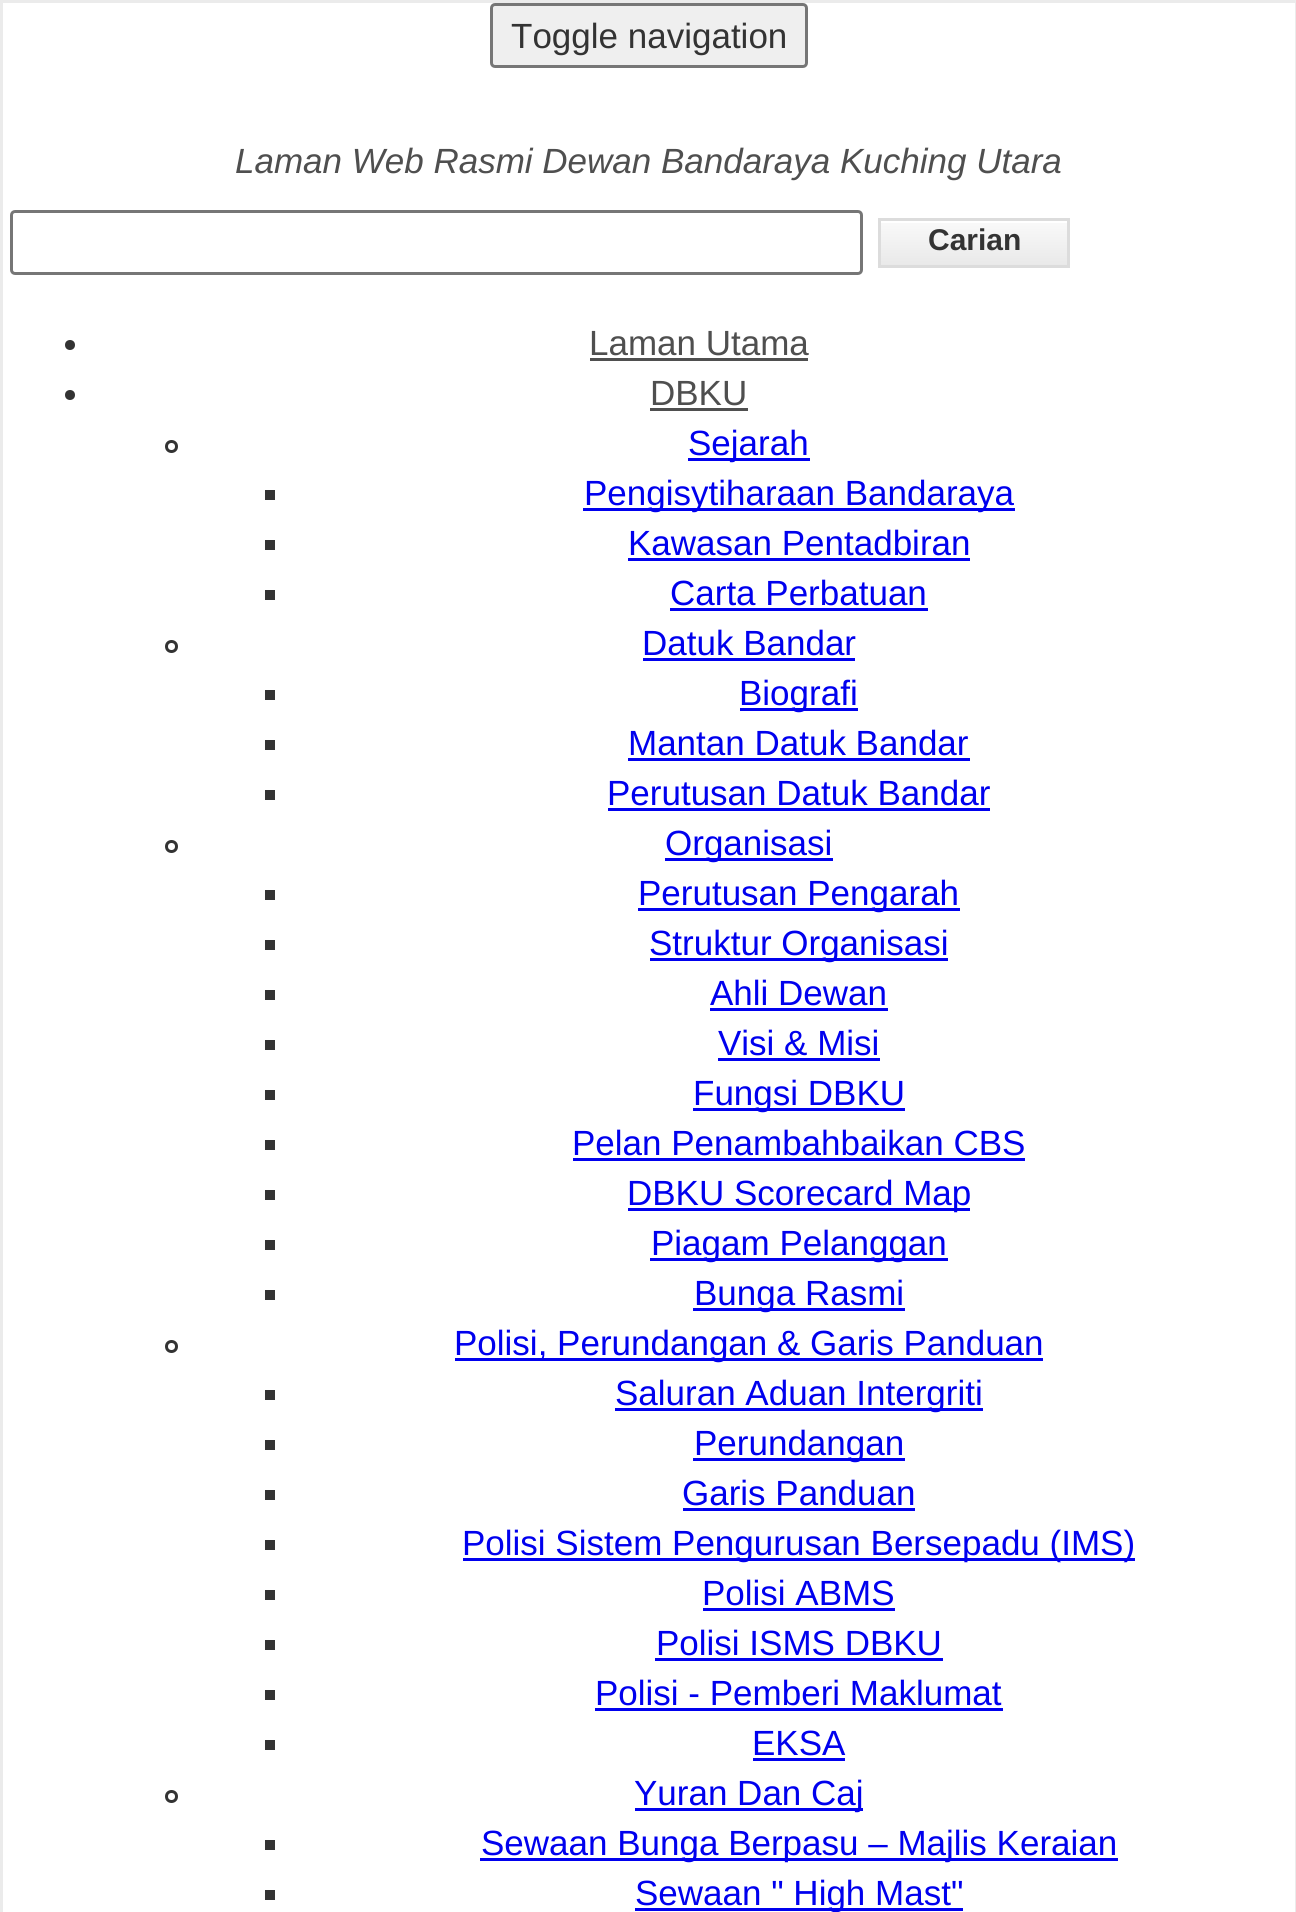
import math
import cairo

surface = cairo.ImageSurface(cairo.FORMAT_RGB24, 1296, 1912)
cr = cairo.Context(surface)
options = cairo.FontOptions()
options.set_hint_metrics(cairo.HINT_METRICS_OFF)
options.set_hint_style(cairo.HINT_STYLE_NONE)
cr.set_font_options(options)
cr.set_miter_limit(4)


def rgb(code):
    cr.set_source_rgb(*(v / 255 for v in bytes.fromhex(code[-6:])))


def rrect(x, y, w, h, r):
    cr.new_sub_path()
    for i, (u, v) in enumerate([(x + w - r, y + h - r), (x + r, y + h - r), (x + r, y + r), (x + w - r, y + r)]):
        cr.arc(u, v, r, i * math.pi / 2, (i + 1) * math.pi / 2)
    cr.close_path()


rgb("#ffffff")
cr.paint()
cr.rectangle(1.5, 1.5, 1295, 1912)
rgb("#ebebeb")
cr.set_line_width(3)
cr.stroke()
rgb("#efefef")
rrect(491.5, 4.5, 315, 62, 3.5)
cr.fill_preserve()
rgb("#767676")
cr.stroke()
rrect(11.5, 211.5, 850, 62, 3.5)
cr.stroke()
gradient = cairo.LinearGradient(880, 220, 880, 265)
gradient.add_color_stop_rgba(0.05, 0.976, 0.976, 0.976, 1)
gradient.add_color_stop_rgba(1, 0.914, 0.914, 0.914, 1)
cr.set_source(gradient)
cr.rectangle(881, 223, 186, 42)
cr.fill()
cr.rectangle(879.5, 219.5, 189, 47)
rgb("#dcdcdc")
cr.stroke()
rgb("#333333")
cr.arc(70, 345, 5, 0, 2 * math.pi)
cr.fill()
rgb("#4f4f4f")
cr.rectangle(590, 358, 218, 3)
cr.fill()
rgb("#333333")
cr.arc(70, 395, 5, 0, 2 * math.pi)
cr.fill()
rgb("#4f4f4f")
cr.rectangle(650, 408, 98, 3)
cr.fill()
cr.arc(171.5, 446.5, 5, 0, 2 * math.pi)
rgb("#333333")
cr.stroke()
for x, y, w, h, color in [
    (688, 458, 122, 3, "#0000ee"),
    (265, 490, 10, 10, "#333333"),
    (583, 508, 432, 3, "#0000ee"),
    (265, 540, 10, 10, "#333333"),
    (628, 558, 342, 3, "#0000ee"),
    (265, 590, 10, 10, "#333333"),
    (670, 608, 258, 3, "#0000ee"),
]:
    rgb(color)
    cr.rectangle(x, y, w, h)
    cr.fill()
cr.arc(171.5, 646.5, 5, 0, 2 * math.pi)
rgb("#333333")
cr.stroke()
for x, y, w, h, color in [
    (643, 658, 212, 3, "#0000ee"),
    (265, 690, 10, 10, "#333333"),
    (740, 708, 118, 3, "#0000ee"),
    (265, 740, 10, 10, "#333333"),
    (628, 758, 342, 3, "#0000ee"),
    (265, 790, 10, 10, "#333333"),
    (608, 808, 382, 3, "#0000ee"),
]:
    rgb(color)
    cr.rectangle(x, y, w, h)
    cr.fill()
cr.arc(171.5, 846.5, 5, 0, 2 * math.pi)
rgb("#333333")
cr.stroke()
for x, y, w, h, color in [
    (665, 858, 168, 3, "#0000ee"),
    (265, 890, 10, 10, "#333333"),
    (638, 908, 322, 3, "#0000ee"),
    (265, 940, 10, 10, "#333333"),
    (650, 958, 298, 3, "#0000ee"),
    (265, 990, 10, 10, "#333333"),
    (710, 1008, 178, 3, "#0000ee"),
    (265, 1040, 10, 10, "#333333"),
    (718, 1058, 162, 3, "#0000ee"),
    (265, 1090, 10, 10, "#333333"),
    (693, 1108, 212, 3, "#0000ee"),
    (265, 1140, 10, 10, "#333333"),
    (573, 1158, 452, 3, "#0000ee"),
    (265, 1190, 10, 10, "#333333"),
    (628, 1208, 342, 3, "#0000ee"),
    (265, 1240, 10, 10, "#333333"),
    (650, 1258, 298, 3, "#0000ee"),
    (265, 1290, 10, 10, "#333333"),
    (693, 1308, 212, 3, "#0000ee"),
]:
    rgb(color)
    cr.rectangle(x, y, w, h)
    cr.fill()
cr.arc(171.5, 1346.5, 5, 0, 2 * math.pi)
rgb("#333333")
cr.stroke()
for x, y, w, h, color in [
    (455, 1358, 588, 3, "#0000ee"),
    (265, 1390, 10, 10, "#333333"),
    (615, 1408, 368, 3, "#0000ee"),
    (265, 1440, 10, 10, "#333333"),
    (693, 1458, 212, 3, "#0000ee"),
    (265, 1490, 10, 10, "#333333"),
    (683, 1508, 232, 3, "#0000ee"),
    (265, 1540, 10, 10, "#333333"),
    (463, 1558, 672, 3, "#0000ee"),
    (265, 1590, 10, 10, "#333333"),
    (703, 1608, 192, 3, "#0000ee"),
    (265, 1640, 10, 10, "#333333"),
    (655, 1658, 288, 3, "#0000ee"),
    (265, 1690, 10, 10, "#333333"),
    (595, 1708, 408, 3, "#0000ee"),
    (265, 1740, 10, 10, "#333333"),
    (753, 1758, 92, 3, "#0000ee"),
]:
    rgb(color)
    cr.rectangle(x, y, w, h)
    cr.fill()
cr.arc(171.5, 1796.5, 5, 0, 2 * math.pi)
rgb("#333333")
cr.stroke()
for x, y, w, h, color in [
    (635, 1808, 228, 3, "#0000ee"),
    (265, 1840, 10, 10, "#333333"),
    (480, 1858, 638, 3, "#0000ee"),
    (265, 1890, 10, 10, "#333333"),
    (635, 1908, 328, 3, "#0000ee"),
]:
    rgb(color)
    cr.rectangle(x, y, w, h)
    cr.fill()
cr.select_font_face("Liberation Sans")
cr.set_font_size(35)
rgb("#333333")
cr.move_to(511, 48)
cr.show_text("Toggle navigation")
cr.select_font_face("Liberation Sans", cairo.FONT_SLANT_ITALIC)
rgb("#4f4f4f")
cr.move_to(235, 173)
cr.show_text("Laman Web Rasmi Dewan Bandaraya Kuching Utara")
cr.select_font_face("Liberation Sans", cairo.FONT_SLANT_NORMAL, cairo.FONT_WEIGHT_BOLD)
cr.set_font_size(30)
rgb("#333333")
cr.move_to(928, 250)
cr.show_text("Carian")
cr.select_font_face("Liberation Sans")
cr.set_font_size(35)
rgb("#4f4f4f")
cr.move_to(589, 355)
cr.show_text("Laman Utama")
cr.move_to(650, 405)
cr.show_text("DBKU")
rgb("#0000ee")
for x, y, s in [
    (688, 455, "Sejarah"),
    (584, 505, "Pengisytiharaan Bandaraya"),
    (628, 555, "Kawasan Pentadbiran"),
    (670, 605, "Carta Perbatuan"),
    (642, 655, "Datuk Bandar"),
    (739, 705, "Biografi"),
    (628, 755, "Mantan Datuk Bandar"),
    (607, 805, "Perutusan Datuk Bandar"),
    (665, 855, "Organisasi"),
    (638, 905, "Perutusan Pengarah"),
    (649, 955, "Struktur Organisasi"),
    (710, 1005, "Ahli Dewan"),
    (718, 1055, "Visi & Misi"),
    (693, 1105, "Fungsi DBKU"),
    (572, 1155, "Pelan Penambahbaikan CBS"),
    (627, 1205, "DBKU Scorecard Map"),
    (651, 1255, "Piagam Pelanggan"),
    (694, 1305, "Bunga Rasmi"),
    (454, 1355, "Polisi, Perundangan & Garis Panduan"),
    (615, 1405, "Saluran Aduan Intergriti"),
    (694, 1455, "Perundangan"),
    (682, 1505, "Garis Panduan"),
    (462, 1555, "Polisi Sistem Pengurusan Bersepadu (IMS)"),
    (702, 1605, "Polisi ABMS"),
    (656, 1655, "Polisi ISMS DBKU"),
    (595, 1705, "Polisi - Pemberi Maklumat"),
    (752, 1755, "EKSA"),
    (634, 1805, "Yuran Dan Caj"),
    (481, 1855, "Sewaan Bunga Berpasu – Majlis Keraian"),
    (635, 1905, "Sewaan \" High Mast\""),
]:
    cr.move_to(x, y)
    cr.show_text(s)
surface.write_to_png("page.png")
